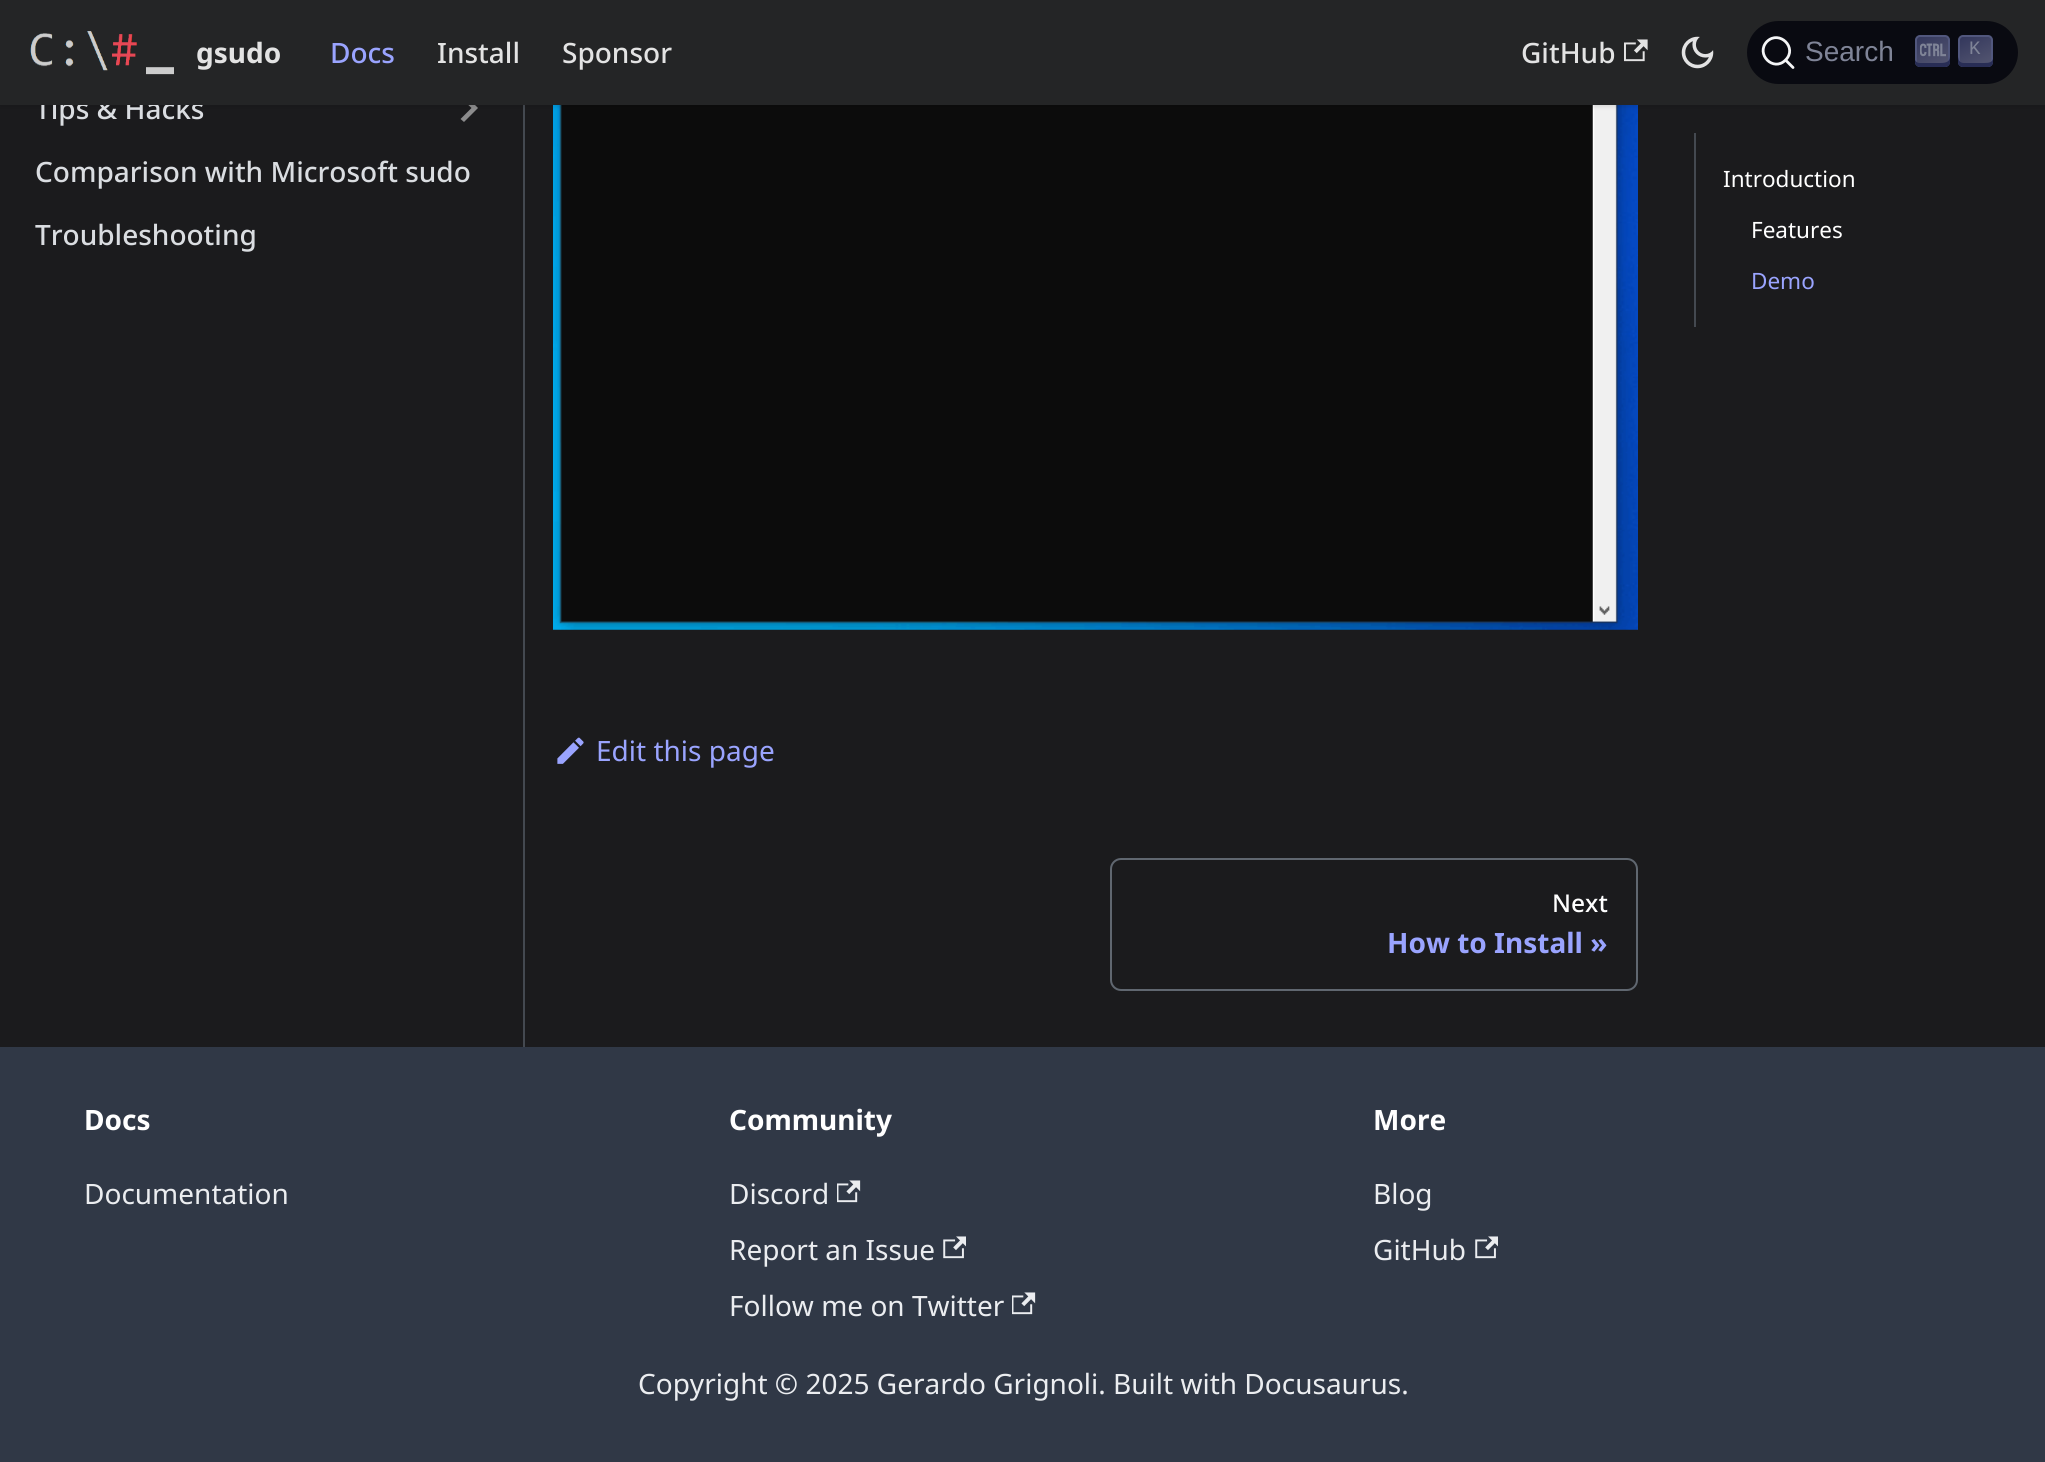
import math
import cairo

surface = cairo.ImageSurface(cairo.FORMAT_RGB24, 2045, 1462)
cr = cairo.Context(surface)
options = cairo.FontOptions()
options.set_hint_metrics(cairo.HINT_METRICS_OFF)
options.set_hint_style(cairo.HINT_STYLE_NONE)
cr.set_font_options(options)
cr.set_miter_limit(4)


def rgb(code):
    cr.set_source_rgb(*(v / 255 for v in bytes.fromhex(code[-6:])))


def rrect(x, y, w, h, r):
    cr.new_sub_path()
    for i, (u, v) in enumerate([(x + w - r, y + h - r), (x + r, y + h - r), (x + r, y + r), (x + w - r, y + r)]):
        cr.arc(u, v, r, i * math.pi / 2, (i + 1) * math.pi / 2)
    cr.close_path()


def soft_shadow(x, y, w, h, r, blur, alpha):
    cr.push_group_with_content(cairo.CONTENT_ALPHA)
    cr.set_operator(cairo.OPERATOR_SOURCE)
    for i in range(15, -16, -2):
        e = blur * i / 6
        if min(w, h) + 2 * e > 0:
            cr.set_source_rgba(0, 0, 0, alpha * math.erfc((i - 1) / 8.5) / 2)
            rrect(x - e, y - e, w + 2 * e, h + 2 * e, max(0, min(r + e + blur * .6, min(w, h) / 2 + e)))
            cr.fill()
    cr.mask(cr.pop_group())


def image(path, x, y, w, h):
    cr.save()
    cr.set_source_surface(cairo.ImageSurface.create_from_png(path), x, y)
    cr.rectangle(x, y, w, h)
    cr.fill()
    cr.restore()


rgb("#1b1b1d")
cr.paint()
rgb("#444950")
cr.rectangle(523, 105, 2, 942)
cr.fill()
rgb("#8c8c8d")
cr.new_path()
cr.move_to(460.5, 97.5)
cr.line_to(471.5, 108)
cr.line_to(460.5, 119)
cr.line_to(464, 122)
cr.line_to(478, 108)
cr.line_to(464, 94)
cr.close_path()
cr.fill()
image("img/5.png", 553, 105, 1085, 525)
rgb("#000000")
soft_shadow(0, 2, 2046, 105, 0, 2, 0.1)
rgb("#444950")
cr.rectangle(1694, 133, 2, 194)
cr.fill()
image("img/6.png", 557, 737, 27, 27)
rrect(1111, 859, 526, 131, 10)
rgb("#606770")
cr.stroke()
rgb("#303846")
cr.rectangle(0, 1047, 2045, 415)
cr.fill()
image("img/7.png", 837, 1180, 24, 23)
image("img/8.png", 943, 1236, 23, 23)
image("img/7.png", 1012, 1292, 24, 23)
image("img/8.png", 1475, 1236, 23, 23)
cr.select_font_face("Noto Sans Medium")
cr.set_font_size(28)
rgb("#dadde1")
cr.move_to(35, 119)
cr.show_text("Tips & Hacks")
rgb("#242526")
cr.rectangle(0, 0, 2045, 105)
cr.fill()
rgb("#090a11")
rrect(1747, 21, 271, 63, 31.5)
cr.fill()
gradient = cairo.LinearGradient(1986, 70, 1966, 31)
gradient.add_color_stop_rgba(0, 0.337, 0.345, 0.447, 1)
gradient.add_color_stop_rgba(1, 0.192, 0.208, 0.357, 1)
cr.set_source(gradient)
rrect(1959, 36, 33, 30, 4)
cr.fill_preserve()
rgb("#51577d")
cr.stroke()
cr.select_font_face("Liberation Mono")
cr.set_font_size(19)
rgb("#7f8497")
cr.move_to(1969, 54)
cr.show_text("K")
rgb("#282d55")
cr.new_path()
cr.move_to(1993, 59)
cr.curve_to(1992, 62, 1990, 63, 1984, 63)
cr.line_to(1964, 63)
cr.curve_to(1960, 63, 1958.5, 60.5, 1958, 57)
cr.line_to(1958, 62)
cr.curve_to(1958, 65, 1960, 67, 1963, 67)
cr.line_to(1988, 67)
cr.curve_to(1991, 67, 1993, 65, 1993, 62)
cr.close_path()
cr.fill()
gradient = cairo.LinearGradient(1942, 70, 1922, 31)
gradient.add_color_stop_rgba(0, 0.337, 0.345, 0.447, 1)
gradient.add_color_stop_rgba(1, 0.192, 0.208, 0.357, 1)
cr.set_source(gradient)
rrect(1916, 36, 33, 30, 4)
cr.fill_preserve()
rgb("#51577d")
cr.stroke()
image("img/4.png", 1920, 43, 26, 14)
rgb("#282d55")
cr.new_path()
cr.move_to(1915, 60)
cr.line_to(1915, 62)
cr.curve_to(1915, 65, 1917, 67, 1920, 67)
cr.line_to(1945, 67)
cr.curve_to(1948, 67, 1950, 65, 1950, 62)
cr.line_to(1950, 57)
cr.curve_to(1949.5, 61, 1947.5, 63, 1940, 63)
cr.line_to(1920, 63)
cr.curve_to(1917.5, 63, 1916, 62, 1915, 60)
cr.close_path()
cr.fill()
cr.new_path()
cr.move_to(1785.5, 60)
cr.line_to(1793, 67.5)
cr.line_to(1785.5, 60)
cr.curve_to(1773.5, 72.5, 1755, 54, 1767, 41.5)
cr.curve_to(1779.5, 29.5, 1798, 48, 1785.5, 60)
cr.close_path()
rgb("#f5f6f7")
cr.set_line_width(2.8)
cr.set_line_cap(cairo.LINE_CAP_ROUND)
cr.set_line_join(cairo.LINE_JOIN_ROUND)
cr.stroke()
image("img/3.png", 1681, 36, 33, 33)
image("img/2.png", 1624, 39, 24, 23)
cr.select_font_face("Noto Sans", cairo.FONT_SLANT_NORMAL, cairo.FONT_WEIGHT_BOLD)
cr.set_font_size(28)
rgb("#e3e3e3")
cr.move_to(196, 63)
cr.show_text("gsudo")
cr.select_font_face("Liberation Sans")
rgb("#7f8497")
cr.move_to(1805, 61)
cr.show_text("Search")
cr.select_font_face("Noto Sans Medium")
rgb("#e3e3e3")
for x, y, s in [
    (1521, 63, "GitHub"),
    (562, 63, "Sponsor"),
    (437, 63, "Install"),
]:
    cr.move_to(x, y)
    cr.show_text(s)
rgb("#9aa4ff")
cr.move_to(330, 63)
cr.show_text("Docs")
image("img/1.png", 30, 31, 144, 44)
rgb("#dadde1")
cr.move_to(35, 182)
cr.show_text("Comparison with Microsoft sudo")
cr.move_to(35, 245)
cr.show_text("Troubleshooting")
cr.select_font_face("Noto Sans")
cr.set_font_size(22.5)
rgb("#ffffff")
cr.move_to(1723, 187)
cr.show_text("Introduction")
cr.move_to(1751, 238)
cr.show_text("Features")
rgb("#9aa4ff")
cr.move_to(1751, 289)
cr.show_text("Demo")
cr.set_font_size(28)
cr.move_to(596, 761)
cr.show_text("Edit this page")
cr.select_font_face("Noto Sans Medium")
cr.set_font_size(24.5)
rgb("#ffffff")
cr.move_to(1552, 912)
cr.show_text("Next")
cr.select_font_face("Noto Sans", cairo.FONT_SLANT_NORMAL, cairo.FONT_WEIGHT_BOLD)
cr.set_font_size(28)
rgb("#9aa4ff")
cr.move_to(1387, 953)
cr.show_text("How to Install »")
rgb("#ffffff")
cr.move_to(84, 1130)
cr.show_text("Docs")
cr.select_font_face("Noto Sans")
rgb("#ebedf0")
cr.move_to(84, 1204)
cr.show_text("Documentation")
cr.select_font_face("Noto Sans", cairo.FONT_SLANT_NORMAL, cairo.FONT_WEIGHT_BOLD)
rgb("#ffffff")
cr.move_to(729, 1130)
cr.show_text("Community")
cr.select_font_face("Noto Sans")
rgb("#ebedf0")
for x, y, s in [
    (729, 1204, "Discord"),
    (729, 1260, "Report an Issue"),
    (729, 1316, "Follow me on Twitter"),
]:
    cr.move_to(x, y)
    cr.show_text(s)
cr.select_font_face("Noto Sans", cairo.FONT_SLANT_NORMAL, cairo.FONT_WEIGHT_BOLD)
rgb("#ffffff")
cr.move_to(1373, 1130)
cr.show_text("More")
cr.select_font_face("Noto Sans")
rgb("#ebedf0")
for x, y, s in [
    (1373, 1204, "Blog"),
    (1373, 1260, "GitHub"),
    (638, 1394, "Copyright © 2025 Gerardo Grignoli. Built with Docusaurus."),
]:
    cr.move_to(x, y)
    cr.show_text(s)
surface.write_to_png("page.png")
